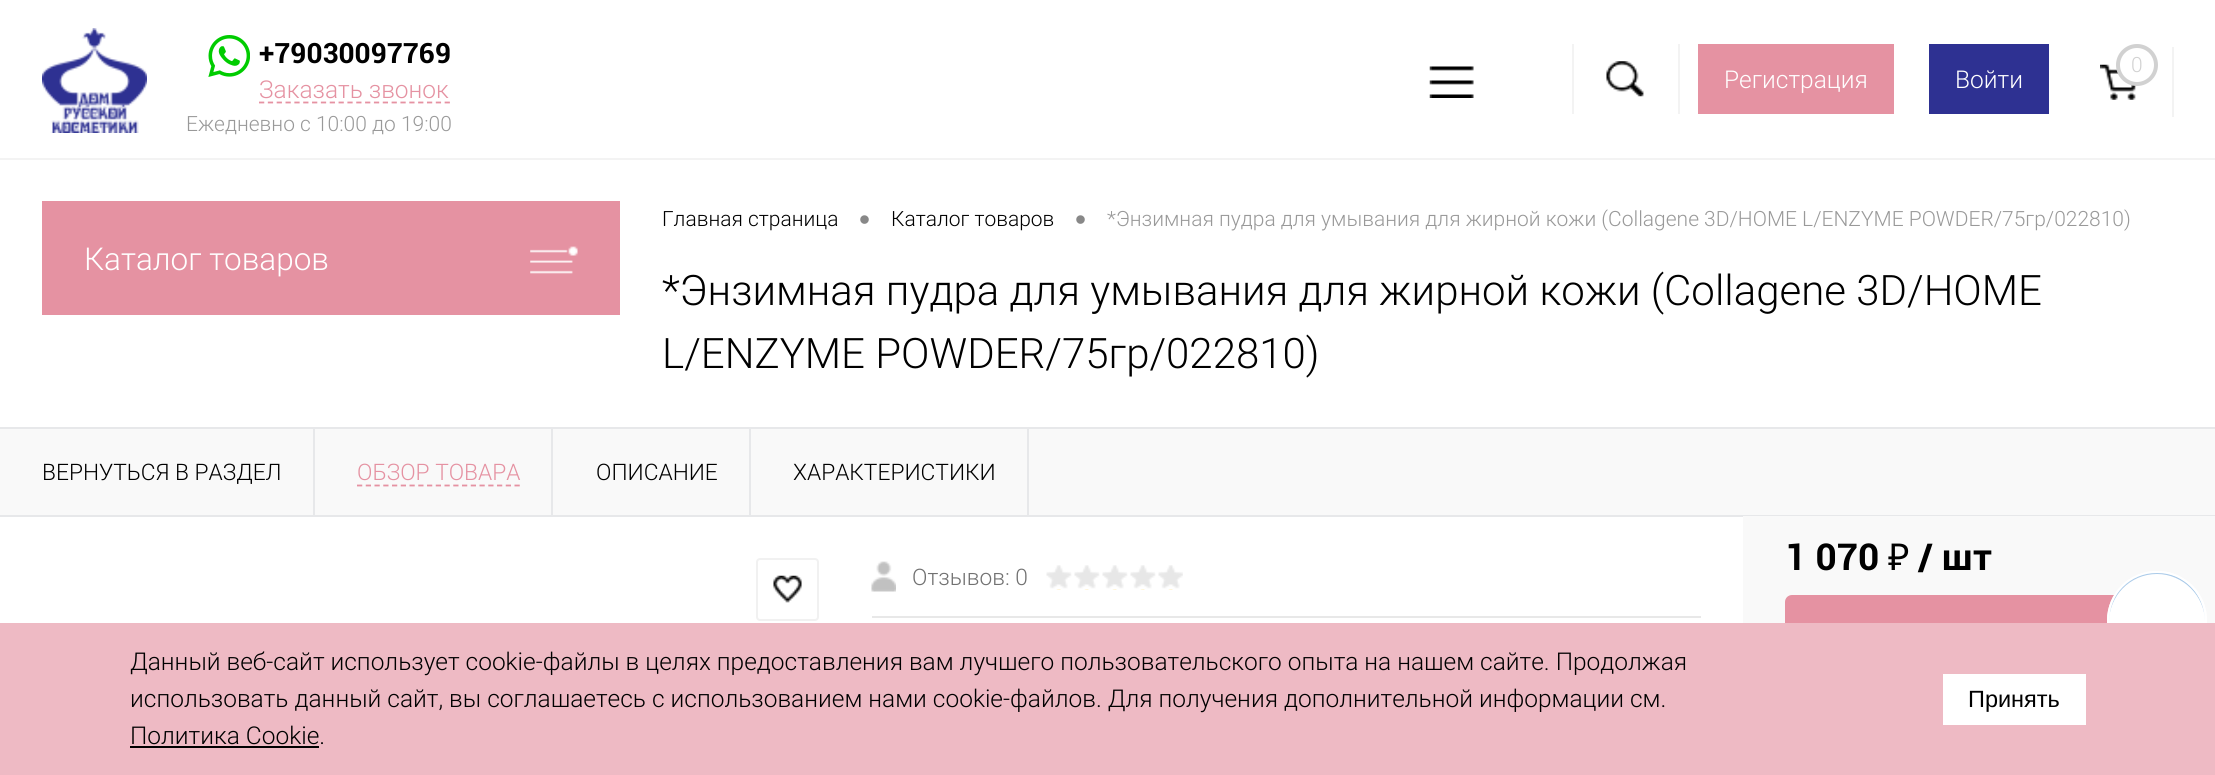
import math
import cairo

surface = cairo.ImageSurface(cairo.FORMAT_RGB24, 2215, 775)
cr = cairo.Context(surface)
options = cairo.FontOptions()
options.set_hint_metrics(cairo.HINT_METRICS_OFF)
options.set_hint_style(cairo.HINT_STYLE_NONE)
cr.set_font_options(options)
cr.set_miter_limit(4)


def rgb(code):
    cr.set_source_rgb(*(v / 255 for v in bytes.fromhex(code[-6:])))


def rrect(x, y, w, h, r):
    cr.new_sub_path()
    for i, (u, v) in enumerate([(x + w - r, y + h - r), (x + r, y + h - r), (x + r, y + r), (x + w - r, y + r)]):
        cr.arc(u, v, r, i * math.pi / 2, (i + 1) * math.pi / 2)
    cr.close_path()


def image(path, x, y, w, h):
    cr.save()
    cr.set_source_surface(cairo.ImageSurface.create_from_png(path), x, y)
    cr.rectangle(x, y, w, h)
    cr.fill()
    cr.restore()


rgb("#ffffff")
cr.paint()
rgb("#f3f3f3")
cr.rectangle(0, 158, 2215, 2)
cr.fill()
image("img/1.png", 42, 28, 105, 105)
image("img/2.png", 208, 35, 42, 42)
cr.new_path()
cr.move_to(259, 102.5)
cr.line_to(450, 102.5)
rgb("#e592a2")
cr.set_line_width(1.8)
cr.set_dash([5.25, 3.59])
cr.stroke()
image("img/3.png", 1429, 66, 45, 32)
rgb("#f3f3f3")
cr.rectangle(1678, 44, 2, 70)
cr.fill()
cr.rectangle(1572, 44, 2, 70)
cr.fill()
image("img/4.png", 1606, 61, 38, 36)
cr.rectangle(2172, 47, 2, 70)
cr.fill()
image("img/5.png", 2100, 64, 37, 36)
rgb("#ffffff")
cr.arc(2137, 65, 19, 0, 2 * math.pi)
cr.fill_preserve()
rgb("#d1d1d1")
cr.set_line_width(4)
cr.set_dash([])
cr.stroke()
for x, y, w, h, color in [
    (1698, 44, 196, 70, "#e592a2"),
    (1929, 44, 120, 70, "#2e3192"),
    (42, 201, 578, 114, "#e592a2"),
]:
    rgb(color)
    cr.rectangle(x, y, w, h)
    cr.fill()
image("img/6.png", 530, 246, 48, 28)
for x, y, w, h, color in [
    (0, 427, 2215, 2, "#e7e8ea"),
    (0, 429, 2215, 86, "#f9f9f9"),
    (0, 515, 2215, 2, "#e7e8ea"),
    (313, 429, 2, 86, "#e7e8ea"),
    (551, 429, 2, 86, "#e7e8ea"),
]:
    rgb(color)
    cr.rectangle(x, y, w, h)
    cr.fill()
cr.new_path()
cr.move_to(357, 485.5)
cr.line_to(520, 485.5)
rgb("#e592a2")
cr.set_line_width(1.8)
cr.set_dash([5.25, 3.5])
cr.stroke()
for x, y, w, h, color in [
    (749, 429, 2, 86, "#e7e8ea"),
    (1027, 429, 2, 86, "#e7e8ea"),
    (1743, 516, 472, 107, "#f9f9f9"),
]:
    rgb(color)
    cr.rectangle(x, y, w, h)
    cr.fill()
rgb("#e592a2")
rrect(1785, 595, 385, 105, 7)
cr.fill()
rrect(757, 559, 61, 61, 3)
rgb("#f1f1f1")
cr.set_line_width(2)
cr.set_dash([])
cr.stroke()
image("img/7.png", 773, 575, 29, 28)
rgb("#e8e8e8")
cr.rectangle(872, 616, 829, 2)
cr.fill()
image("img/8.png", 871, 561, 25, 31)
image("img/9.png", 1046, 565, 137, 25)
rgb("#ffffff")
rrect(2107, 571, 100, 99, 49.5)
cr.fill()
rgb("#abcbe9")
cr.new_path()
cr.move_to(2157, 574)
cr.curve_to(2183, 574, 2205, 596, 2205, 622)
cr.curve_to(2205, 574, 2144, 553, 2117, 593)
cr.curve_to(2112, 602, 2109, 611, 2109, 622)
cr.curve_to(2109, 596, 2130, 574, 2157, 574)
cr.close_path()
cr.fill()
rrect(2108, 572, 98, 97, 48.5)
rgb("#ffffff")
cr.stroke()
for x, y, w, h, color in [
    (0, 623, 2215, 152, "#eebac4"),
    (130, 746, 189, 2, "#000000"),
    (1943, 674, 143, 51, "#ffffff"),
]:
    rgb(color)
    cr.rectangle(x, y, w, h)
    cr.fill()
cr.select_font_face("Roboto", cairo.FONT_SLANT_NORMAL, cairo.FONT_WEIGHT_BOLD)
cr.set_font_size(28)
rgb("#000000")
cr.move_to(259, 63)
cr.show_text("+79030097769")
cr.select_font_face("Roboto Light")
cr.set_font_size(24.5)
rgb("#e592a2")
cr.move_to(259, 98)
cr.show_text("Заказать звонок")
cr.set_font_size(21)
rgb("#999999")
cr.move_to(186, 131)
cr.show_text("Ежедневно с 10:00 до 19:00")
rgb("#d1d1d1")
cr.move_to(2131, 72)
cr.show_text("0")
cr.set_font_size(24.5)
rgb("#ffffff")
cr.move_to(1724, 88)
cr.show_text("Регистрация")
cr.move_to(1955, 88)
cr.show_text("Войти")
cr.set_font_size(31.5)
cr.move_to(84, 270)
cr.show_text("Каталог товаров")
cr.set_font_size(21)
rgb("#000000")
cr.move_to(662, 226)
cr.show_text("Главная страница")
cr.select_font_face("Liberation Sans")
cr.set_font_size(31.5)
rgb("#888888")
cr.move_to(859, 230)
cr.show_text("•")
cr.select_font_face("Roboto Light")
cr.set_font_size(21)
rgb("#000000")
cr.move_to(891, 226)
cr.show_text("Каталог товаров")
cr.select_font_face("Liberation Sans")
cr.set_font_size(31.5)
rgb("#888888")
cr.move_to(1075, 230)
cr.show_text("•")
cr.select_font_face("Roboto Light")
cr.set_font_size(21)
rgb("#999999")
cr.move_to(1107, 226)
cr.show_text("*Энзимная пудра для умывания для жирной кожи (Collagene 3D/HOME L/ENZYME POWDER/75гр/022810)")
cr.set_font_size(42)
rgb("#000000")
cr.move_to(662, 305)
cr.show_text("*Энзимная пудра для умывания для жирной кожи (Collagene 3D/HOME")
cr.move_to(662, 368)
cr.show_text("L/ENZYME POWDER/75гр/022810)")
cr.set_font_size(22.75)
cr.move_to(42, 480)
cr.show_text("ВЕРНУТЬСЯ В РАЗДЕЛ")
rgb("#e592a2")
cr.move_to(357, 480)
cr.show_text("ОБЗОР ТОВАРА")
rgb("#000000")
cr.move_to(596, 480)
cr.show_text("ОПИСАНИЕ")
cr.move_to(793, 480)
cr.show_text("ХАРАКТЕРИСТИКИ")
cr.select_font_face("Roboto", cairo.FONT_SLANT_NORMAL, cairo.FONT_WEIGHT_BOLD)
cr.set_font_size(37)
cr.move_to(1785, 570)
cr.show_text("1 070")
cr.select_font_face("Noto Sans")
cr.move_to(1888, 570)
cr.show_text("₽")
cr.select_font_face("Roboto", cairo.FONT_SLANT_NORMAL, cairo.FONT_WEIGHT_BOLD)
cr.move_to(1918, 570)
cr.show_text("/ шт")
cr.select_font_face("Roboto Light")
cr.set_font_size(22.75)
rgb("#717171")
cr.move_to(912, 585)
cr.show_text("Отзывов: 0")
cr.set_font_size(24.5)
rgb("#000000")
for x, y, s in [
    (130, 670, "Данный веб-сайт использует cookie-файлы в целях предоставления вам лучшего пользовательского опыта на нашем сайте. Продолжая"),
    (130, 707, "использовать данный сайт, вы соглашаетесь с использованием нами cookie-файлов. Для получения дополнительной информации см."),
    (130, 744, "Политика Cookie."),
]:
    cr.move_to(x, y)
    cr.show_text(s)
cr.select_font_face("Liberation Sans")
cr.set_font_size(23.5)
cr.move_to(1968, 707)
cr.show_text("Принять")
surface.write_to_png("page.png")
